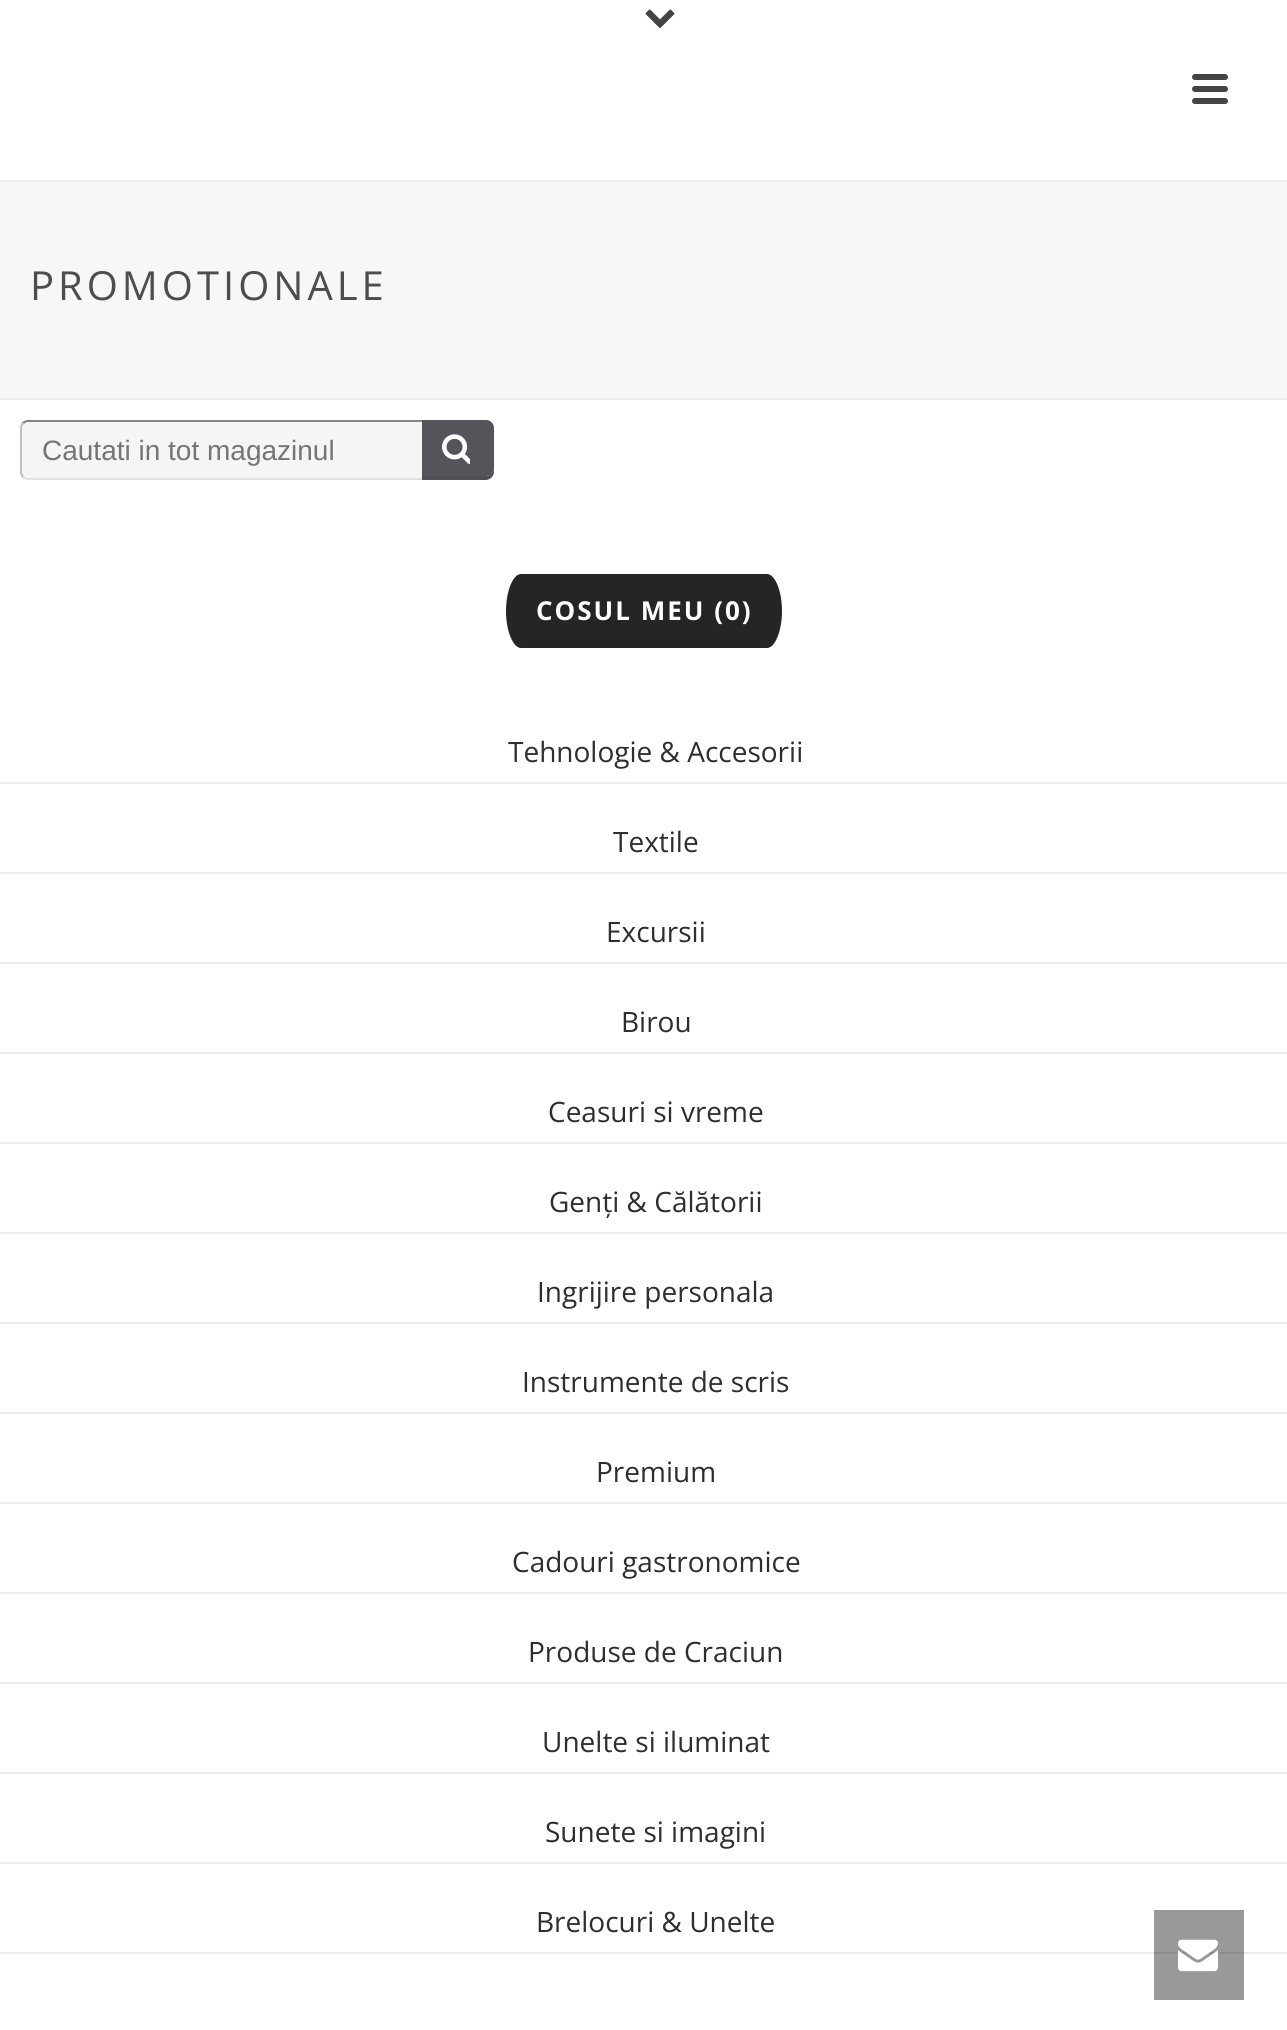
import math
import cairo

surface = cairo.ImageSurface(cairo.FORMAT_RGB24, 1287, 2030)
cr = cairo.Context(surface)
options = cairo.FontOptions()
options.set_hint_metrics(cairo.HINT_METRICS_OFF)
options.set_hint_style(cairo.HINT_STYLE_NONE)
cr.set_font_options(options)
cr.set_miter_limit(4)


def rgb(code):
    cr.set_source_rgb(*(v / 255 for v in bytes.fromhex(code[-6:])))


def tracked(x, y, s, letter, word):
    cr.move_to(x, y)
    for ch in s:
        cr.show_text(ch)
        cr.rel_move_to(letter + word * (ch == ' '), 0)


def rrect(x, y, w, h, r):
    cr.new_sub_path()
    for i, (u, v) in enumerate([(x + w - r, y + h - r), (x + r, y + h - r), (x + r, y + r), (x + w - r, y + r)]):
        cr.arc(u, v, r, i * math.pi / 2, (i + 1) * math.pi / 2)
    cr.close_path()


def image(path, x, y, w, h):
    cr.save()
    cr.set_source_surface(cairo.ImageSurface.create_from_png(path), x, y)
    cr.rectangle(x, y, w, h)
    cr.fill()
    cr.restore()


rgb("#ffffff")
cr.paint()
for x, y, w, h, color in [
    (1154, 1910, 90, 90, "#999999"),
    (0, 182, 1287, 216, "#f7f7f7"),
    (0, 398, 1287, 2, "#ededed"),
    (0, 180, 1287, 2, "#ededed"),
]:
    rgb(color)
    cr.rectangle(x, y, w, h)
    cr.fill()
image("img/1.png", 645, 9, 30, 19)
rgb("#444444")
rrect(1192, 74, 36, 6, 3)
cr.fill()
rrect(1192, 86, 36, 6, 3)
cr.fill()
rrect(1192, 98, 36, 6, 3)
cr.fill()
rgb("#f5f5f5")
cr.new_path()
cr.move_to(28, 420)
cr.line_to(424, 420)
cr.line_to(424, 480)
cr.line_to(28, 480)
cr.curve_to(23.5, 480, 20, 476.5, 20, 472)
cr.line_to(20, 428)
cr.curve_to(20, 423.5, 23.5, 420, 28, 420)
cr.close_path()
cr.fill()
rgb("#848484")
cr.new_path()
cr.move_to(28, 420)
cr.curve_to(26, 420, 24, 421, 22, 422)
cr.line_to(24, 424)
cr.curve_to(25, 423, 26, 422, 28, 422)
cr.line_to(424, 422)
cr.line_to(424, 420)
cr.close_path()
cr.fill()
rgb("#e1e1e1")
cr.new_path()
cr.move_to(424, 480)
cr.line_to(424, 478)
cr.line_to(28, 478)
cr.curve_to(26, 478, 25, 477, 24, 476)
cr.line_to(22, 478)
cr.curve_to(24, 479, 26, 480, 28, 480)
cr.close_path()
cr.fill()
rgb("#c1c1c1")
cr.new_path()
cr.move_to(20, 428)
cr.line_to(20, 472)
cr.curve_to(20, 474, 21, 476, 22, 478)
cr.line_to(24, 476)
cr.curve_to(23, 475, 22, 474, 22, 472)
cr.line_to(22, 428)
cr.curve_to(22, 426, 23, 425, 24, 424)
cr.line_to(22, 422)
cr.curve_to(21, 424, 20, 426, 20, 428)
cr.close_path()
cr.fill()
rgb("#505054")
cr.new_path()
cr.move_to(422, 476)
cr.line_to(422, 480)
cr.line_to(486, 480)
cr.curve_to(490, 480, 494, 476, 494, 472)
cr.line_to(494, 468)
cr.curve_to(494, 472, 490, 476, 486, 476)
cr.close_path()
cr.fill()
rgb("#54545b")
cr.new_path()
cr.move_to(422, 420)
cr.line_to(486, 420)
cr.curve_to(490.5, 420, 494, 423.5, 494, 428)
cr.line_to(494, 468)
cr.curve_to(494, 472.5, 490.5, 476, 486, 476)
cr.line_to(422, 476)
cr.close_path()
cr.fill()
image("img/2.png", 442, 434, 28, 30)
rgb("#252525")
cr.new_path()
cr.move_to(521, 574)
cr.line_to(767, 574)
cr.curve_to(775, 574, 782, 591, 782, 611)
cr.curve_to(782, 631, 775, 648, 767, 648)
cr.line_to(521, 648)
cr.curve_to(513, 648, 506, 631, 506, 611)
cr.curve_to(506, 591, 513, 574, 521, 574)
cr.close_path()
cr.fill()
for x, y, w, h, color in [
    (0, 782, 1287, 2, "#eaeaea"),
    (0, 872, 1287, 2, "#eaeaea"),
    (0, 962, 1287, 2, "#eaeaea"),
    (0, 1052, 1287, 2, "#eaeaea"),
    (0, 1142, 1287, 2, "#eaeaea"),
    (0, 1232, 1287, 2, "#eaeaea"),
    (0, 1322, 1287, 2, "#eaeaea"),
    (0, 1412, 1287, 2, "#eaeaea"),
    (0, 1502, 1287, 2, "#eaeaea"),
    (0, 1592, 1287, 2, "#eaeaea"),
    (0, 1682, 1287, 2, "#eaeaea"),
    (0, 1772, 1287, 2, "#eaeaea"),
    (0, 1862, 1287, 2, "#eaeaea"),
    (0, 1952, 1287, 2, "#eaeaea"),
    (1154, 1952, 90, 2, "#8c8c8c"),
]:
    rgb(color)
    cr.rectangle(x, y, w, h)
    cr.fill()
image("img/3.png", 1178, 1939, 40, 33)
cr.select_font_face("Open Sans")
cr.set_font_size(40)
rgb("#4d4d4d")
tracked(30, 300, "PROMOTIONALE", 4, 0)
cr.select_font_face("Liberation Sans")
cr.set_font_size(28)
rgb("#757575")
cr.move_to(42, 460)
cr.show_text("Cautati in tot magazinul")
cr.select_font_face("Open Sans", cairo.FONT_SLANT_NORMAL, cairo.FONT_WEIGHT_BOLD)
cr.set_font_size(26)
rgb("#ffffff")
tracked(536, 620, "COSUL MEU (0)", 2, 0)
cr.select_font_face("Open Sans")
cr.set_font_size(28)
rgb("#2e2e2e")
for x, y, s in [
    (508, 762, "Tehnologie & Accesorii"),
    (613, 852, "Textile"),
    (606, 942, "Excursii"),
    (621, 1032, "Birou"),
    (548, 1122, "Ceasuri si vreme"),
    (549, 1212, "Genți & Călătorii"),
    (537, 1302, "Ingrijire personala"),
    (522, 1392, "Instrumente de scris"),
    (596, 1482, "Premium"),
    (512, 1572, "Cadouri gastronomice"),
    (528, 1662, "Produse de Craciun"),
    (542, 1752, "Unelte si iluminat"),
    (545, 1842, "Sunete si imagini"),
    (536, 1932, "Brelocuri & Unelte"),
]:
    cr.move_to(x, y)
    cr.show_text(s)
surface.write_to_png("page.png")
